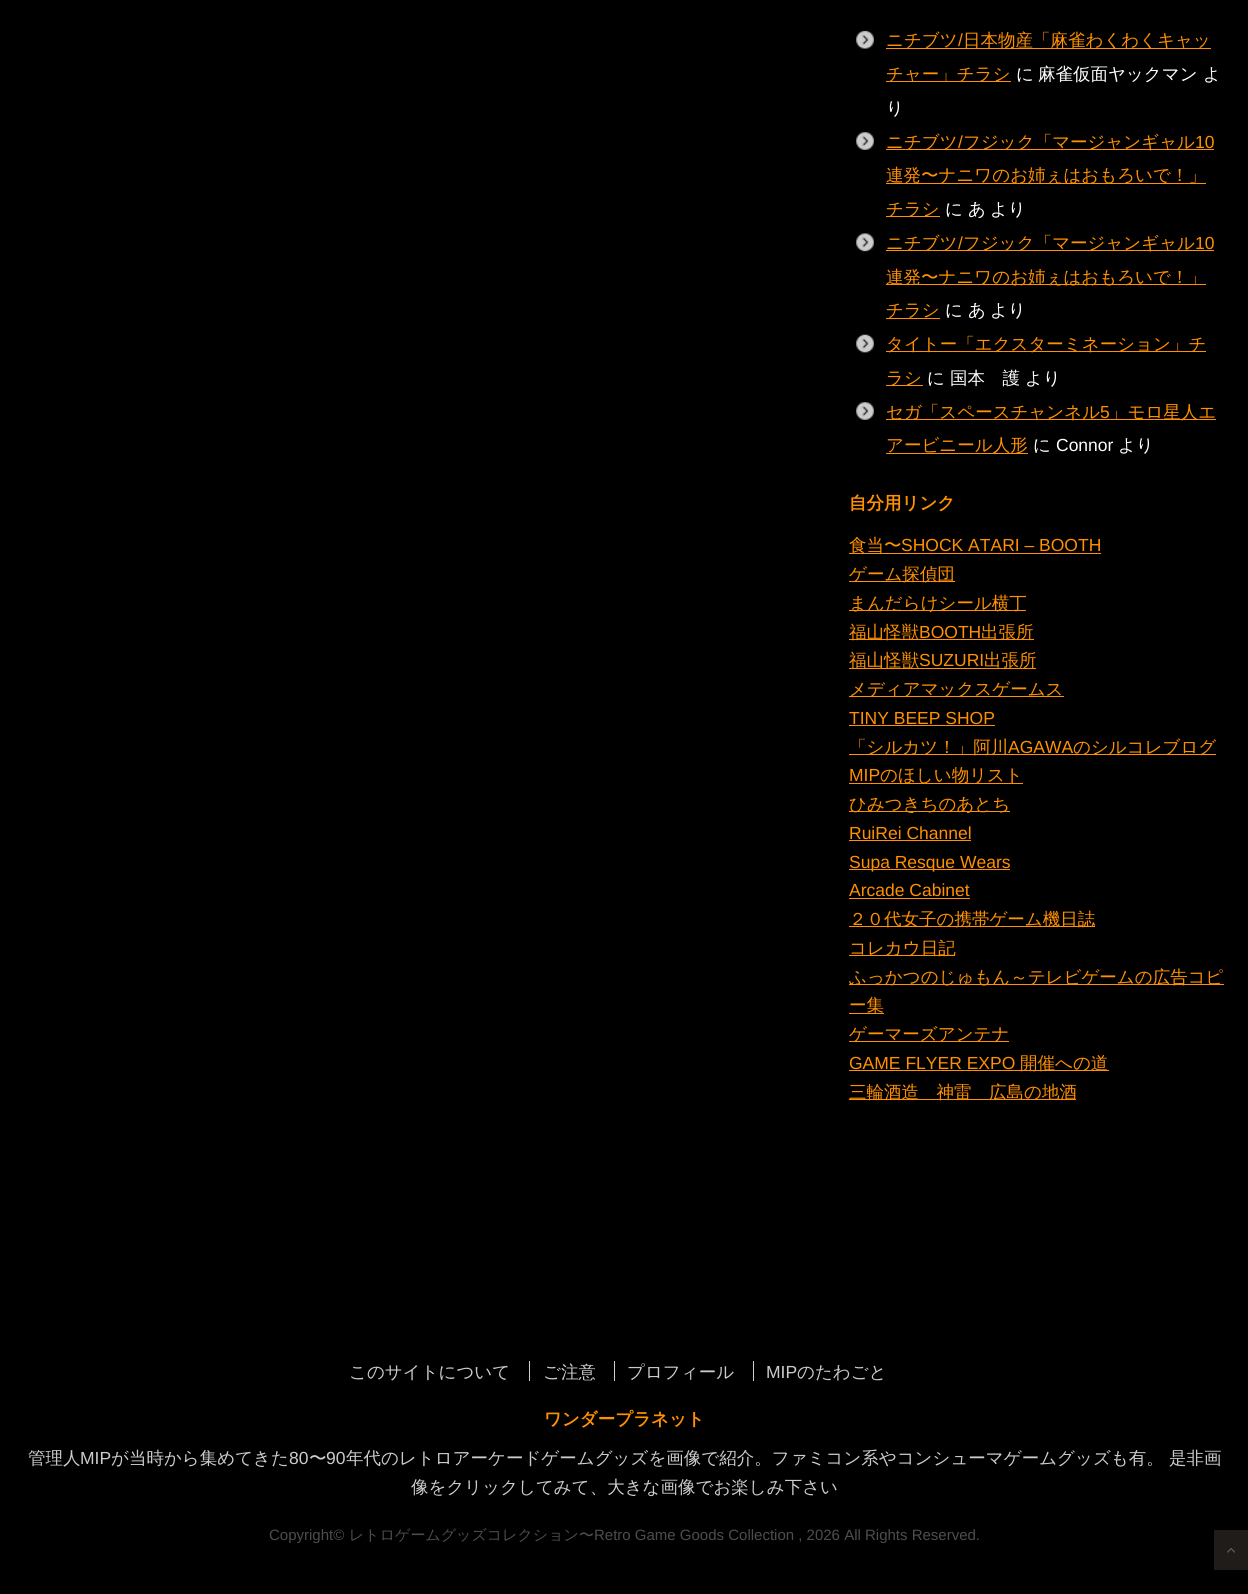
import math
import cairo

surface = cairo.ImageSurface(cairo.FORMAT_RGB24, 1248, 1594)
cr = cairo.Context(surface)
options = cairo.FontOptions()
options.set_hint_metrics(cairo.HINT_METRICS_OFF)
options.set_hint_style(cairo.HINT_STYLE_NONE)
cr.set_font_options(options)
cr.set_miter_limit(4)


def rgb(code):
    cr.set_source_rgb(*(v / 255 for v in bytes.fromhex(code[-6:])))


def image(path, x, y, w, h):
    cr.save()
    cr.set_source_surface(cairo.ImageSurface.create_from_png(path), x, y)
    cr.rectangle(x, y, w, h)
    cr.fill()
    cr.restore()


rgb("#000000")
cr.paint()
image("img/1.png", 856, 30, 18, 19)
rgb("#ff9000")
cr.rectangle(886, 48, 325, 1)
cr.fill()
cr.rectangle(886, 81, 125, 1)
cr.fill()
image("img/2.png", 856, 132, 18, 18)
for x, y, w, h, color in [
    (886, 149, 328, 1, "#ff9000"),
    (886, 183, 320, 1, "#ff9000"),
    (886, 216, 54, 1, "#ff9000"),
]:
    rgb(color)
    cr.rectangle(x, y, w, h)
    cr.fill()
image("img/3.png", 856, 233, 18, 19)
for x, y, w, h, color in [
    (886, 250, 328, 1, "#ff9000"),
    (886, 284, 320, 1, "#ff9000"),
    (886, 318, 54, 1, "#ff9000"),
]:
    rgb(color)
    cr.rectangle(x, y, w, h)
    cr.fill()
image("img/4.png", 856, 334, 18, 19)
cr.rectangle(886, 351, 320, 1)
cr.fill()
cr.rectangle(886, 385, 37, 1)
cr.fill()
image("img/5.png", 856, 402, 18, 18)
for x, y, w, h, color in [
    (886, 419, 330, 1, "#ff9000"),
    (886, 453, 142, 1, "#ff9000"),
    (849, 553, 252, 1, "#ff9000"),
    (849, 581, 106, 1, "#ff9000"),
    (849, 610, 177, 1, "#ff9000"),
    (849, 639, 185, 1, "#ff9000"),
    (849, 668, 187, 1, "#ff9000"),
    (849, 696, 215, 1, "#ff9000"),
    (849, 725, 146, 1, "#ff9000"),
    (849, 754, 367, 1, "#ff9000"),
    (849, 783, 174, 1, "#ff9000"),
    (849, 811, 161, 1, "#ff9000"),
    (849, 840, 122, 1, "#ff9000"),
    (849, 869, 161, 1, "#ff9000"),
    (849, 898, 121, 1, "#ff9000"),
    (849, 926, 246, 1, "#ff9000"),
    (849, 955, 106, 1, "#ff9000"),
    (849, 984, 375, 1, "#ff9000"),
    (849, 1013, 35, 1, "#ff9000"),
    (849, 1041, 160, 1, "#ff9000"),
    (849, 1070, 260, 1, "#ff9000"),
    (849, 1099, 227, 1, "#ff9000"),
    (529, 1361, 1, 20, "#cccccc"),
    (614, 1361, 1, 20, "#cccccc"),
    (753, 1361, 1, 20, "#cccccc"),
    (1214, 1530, 34, 40, "#1f1c19"),
]:
    rgb(color)
    cr.rectangle(x, y, w, h)
    cr.fill()
image("img/6.png", 1227, 1548, 8, 5)
cr.select_font_face("WenQuanYi Zen Hei Medium")
cr.set_font_size(17.5)
rgb("#ff9000")
cr.move_to(886, 46)
cr.show_text("ニチブツ")
cr.select_font_face("Liberation Sans")
cr.move_to(958, 46)
cr.show_text("/")
cr.select_font_face("WenQuanYi Zen Hei Medium")
cr.move_to(963, 46)
cr.show_text("日本物産「麻雀わくわくキャッ")
cr.move_to(886, 80)
cr.show_text("チャー」チラシ")
rgb("#ffffff")
for x, y, s in [
    (1016, 80, "に"),
    (1038, 80, "麻雀仮面ヤックマン"),
    (1203, 80, "よ"),
    (886, 114, "り"),
]:
    cr.move_to(x, y)
    cr.show_text(s)
rgb("#ff9000")
cr.move_to(886, 148)
cr.show_text("ニチブツ")
cr.select_font_face("Liberation Sans")
cr.move_to(958, 148)
cr.show_text("/")
cr.select_font_face("WenQuanYi Zen Hei Medium")
cr.move_to(963, 148)
cr.show_text("フジック「マージャンギャル")
cr.select_font_face("Liberation Sans")
cr.move_to(1195, 148)
cr.show_text("10")
cr.select_font_face("WenQuanYi Zen Hei Medium")
cr.move_to(886, 181)
cr.show_text("連発〜ナニワのお姉ぇはおもろいで！」")
cr.move_to(886, 215)
cr.show_text("チラシ")
rgb("#ffffff")
for x, y, s in [
    (945, 215, "に"),
    (968, 215, "あ"),
    (990, 215, "より"),
]:
    cr.move_to(x, y)
    cr.show_text(s)
rgb("#ff9000")
cr.move_to(886, 249)
cr.show_text("ニチブツ")
cr.select_font_face("Liberation Sans")
cr.move_to(958, 249)
cr.show_text("/")
cr.select_font_face("WenQuanYi Zen Hei Medium")
cr.move_to(963, 249)
cr.show_text("フジック「マージャンギャル")
cr.select_font_face("Liberation Sans")
cr.move_to(1195, 249)
cr.show_text("10")
cr.select_font_face("WenQuanYi Zen Hei Medium")
cr.move_to(886, 283)
cr.show_text("連発〜ナニワのお姉ぇはおもろいで！」")
cr.move_to(886, 316)
cr.show_text("チラシ")
rgb("#ffffff")
for x, y, s in [
    (945, 316, "に"),
    (968, 316, "あ"),
    (990, 316, "より"),
]:
    cr.move_to(x, y)
    cr.show_text(s)
rgb("#ff9000")
cr.move_to(886, 350)
cr.show_text("タイトー「エクスターミネーション」チ")
cr.move_to(886, 384)
cr.show_text("ラシ")
rgb("#ffffff")
for x, y, s in [
    (927, 384, "に"),
    (950, 384, "国本　護"),
    (1025, 384, "より"),
]:
    cr.move_to(x, y)
    cr.show_text(s)
rgb("#ff9000")
cr.move_to(886, 418)
cr.show_text("セガ「スペースチャンネル")
cr.select_font_face("Liberation Sans")
cr.move_to(1100, 418)
cr.show_text("5")
cr.select_font_face("WenQuanYi Zen Hei Medium")
cr.move_to(1110, 418)
cr.show_text("」モロ星人エ")
cr.move_to(886, 451)
cr.show_text("アービニール人形")
rgb("#ffffff")
cr.move_to(1033, 451)
cr.show_text("に")
cr.select_font_face("Liberation Sans")
cr.move_to(1056, 451)
cr.show_text("Connor")
cr.select_font_face("WenQuanYi Zen Hei Medium")
cr.move_to(1118, 451)
cr.show_text("より")
cr.select_font_face("WenQuanYi Zen Hei", cairo.FONT_SLANT_NORMAL, cairo.FONT_WEIGHT_BOLD)
rgb("#ff9000")
cr.move_to(849, 509)
cr.show_text("自分用リンク")
cr.select_font_face("WenQuanYi Zen Hei Medium")
cr.move_to(849, 551)
cr.show_text("食当〜")
cr.select_font_face("Liberation Sans")
cr.move_to(901, 551)
cr.show_text("SHOCK ATARI – BOOTH")
cr.select_font_face("WenQuanYi Zen Hei Medium")
for x, y, s in [
    (849, 580, "ゲーム探偵団"),
    (849, 609, "まんだらけシール横丁"),
    (849, 638, "福山怪獣"),
]:
    cr.move_to(x, y)
    cr.show_text(s)
cr.select_font_face("Liberation Sans")
cr.move_to(919, 638)
cr.show_text("BOOTH")
cr.select_font_face("WenQuanYi Zen Hei Medium")
cr.move_to(981, 638)
cr.show_text("出張所")
cr.move_to(849, 666)
cr.show_text("福山怪獣")
cr.select_font_face("Liberation Sans")
cr.move_to(919, 666)
cr.show_text("SUZURI")
cr.select_font_face("WenQuanYi Zen Hei Medium")
cr.move_to(984, 666)
cr.show_text("出張所")
cr.move_to(849, 695)
cr.show_text("メディアマックスゲームス")
cr.select_font_face("Liberation Sans")
cr.move_to(849, 724)
cr.show_text("TINY BEEP SHOP")
cr.select_font_face("WenQuanYi Zen Hei Medium")
cr.move_to(849, 753)
cr.show_text("「シルカツ！」阿川")
cr.select_font_face("Liberation Sans")
cr.move_to(1008, 753)
cr.show_text("AGAWA")
cr.select_font_face("WenQuanYi Zen Hei Medium")
cr.move_to(1073, 753)
cr.show_text("のシルコレブログ")
cr.select_font_face("Liberation Sans")
cr.move_to(849, 781)
cr.show_text("MIP")
cr.select_font_face("WenQuanYi Zen Hei Medium")
cr.move_to(880, 781)
cr.show_text("のほしい物リスト")
cr.move_to(849, 810)
cr.show_text("ひみつきちのあとち")
cr.select_font_face("Liberation Sans")
for x, y, s in [
    (849, 839, "RuiRei Channel"),
    (849, 868, "Supa Resque Wears"),
    (849, 896, "Arcade Cabinet"),
]:
    cr.move_to(x, y)
    cr.show_text(s)
cr.select_font_face("WenQuanYi Zen Hei Medium")
for x, y, s in [
    (849, 925, "２０代女子の携帯ゲーム機日誌"),
    (849, 954, "コレカウ日記"),
    (849, 983, "ふっかつのじゅもん～テレビゲームの広告コピ"),
    (849, 1011, "ー集"),
    (849, 1040, "ゲーマーズアンテナ"),
]:
    cr.move_to(x, y)
    cr.show_text(s)
cr.select_font_face("Liberation Sans")
cr.move_to(849, 1069)
cr.show_text("GAME FLYER EXPO")
cr.select_font_face("WenQuanYi Zen Hei Medium")
cr.move_to(1020, 1069)
cr.show_text("開催への道")
cr.move_to(849, 1098)
cr.show_text("三輪酒造　神雷　広島の地酒")
rgb("#cccccc")
for x, y, s in [
    (349, 1378, "このサイトについて"),
    (543, 1378, "ご注意"),
    (627, 1378, "プロフィール"),
]:
    cr.move_to(x, y)
    cr.show_text(s)
cr.select_font_face("Liberation Sans")
cr.move_to(766, 1378)
cr.show_text("MIP")
cr.select_font_face("WenQuanYi Zen Hei Medium")
cr.move_to(797, 1378)
cr.show_text("のたわごと")
cr.select_font_face("WenQuanYi Zen Hei", cairo.FONT_SLANT_NORMAL, cairo.FONT_WEIGHT_BOLD)
rgb("#ff9000")
cr.move_to(544, 1425)
cr.show_text("ワンダープラネット")
cr.select_font_face("WenQuanYi Zen Hei Medium")
rgb("#cccccc")
cr.move_to(28, 1464)
cr.show_text("管理人")
cr.select_font_face("Liberation Sans")
cr.move_to(80, 1464)
cr.show_text("MIP")
cr.select_font_face("WenQuanYi Zen Hei Medium")
cr.move_to(111, 1464)
cr.show_text("が当時から集めてきた")
cr.select_font_face("Liberation Sans")
cr.move_to(289, 1464)
cr.show_text("80")
cr.select_font_face("WenQuanYi Zen Hei Medium")
cr.move_to(309, 1464)
cr.show_text("〜")
cr.select_font_face("Liberation Sans")
cr.move_to(326, 1464)
cr.show_text("90")
cr.select_font_face("WenQuanYi Zen Hei Medium")
cr.move_to(346, 1464)
cr.show_text("年代のレトロアーケードゲームグッズを画像で紹介。ファミコン系やコンシューマゲームグッズも有。 是非画")
cr.move_to(411, 1493)
cr.show_text("像をクリックしてみて、大きな画像でお楽しみ下さい")
cr.select_font_face("Liberation Sans")
cr.set_font_size(15)
rgb("#4d4d4d")
cr.move_to(269, 1540)
cr.show_text("Copyright©")
cr.select_font_face("WenQuanYi Zen Hei Medium")
cr.move_to(349, 1540)
cr.show_text("レトロゲームグッズコレクション〜")
cr.select_font_face("Liberation Sans")
cr.move_to(594, 1540)
cr.show_text("Retro Game Goods Collection , 2026 All Rights Reserved.")
surface.write_to_png("page.png")
